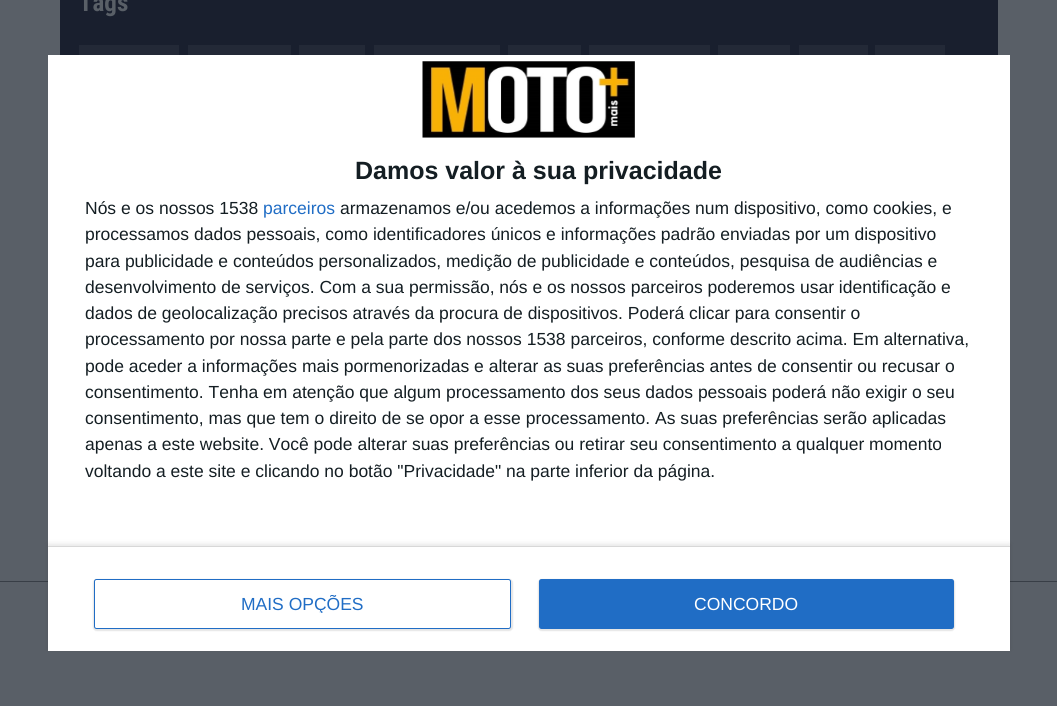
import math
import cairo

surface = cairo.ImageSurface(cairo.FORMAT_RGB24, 1057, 706)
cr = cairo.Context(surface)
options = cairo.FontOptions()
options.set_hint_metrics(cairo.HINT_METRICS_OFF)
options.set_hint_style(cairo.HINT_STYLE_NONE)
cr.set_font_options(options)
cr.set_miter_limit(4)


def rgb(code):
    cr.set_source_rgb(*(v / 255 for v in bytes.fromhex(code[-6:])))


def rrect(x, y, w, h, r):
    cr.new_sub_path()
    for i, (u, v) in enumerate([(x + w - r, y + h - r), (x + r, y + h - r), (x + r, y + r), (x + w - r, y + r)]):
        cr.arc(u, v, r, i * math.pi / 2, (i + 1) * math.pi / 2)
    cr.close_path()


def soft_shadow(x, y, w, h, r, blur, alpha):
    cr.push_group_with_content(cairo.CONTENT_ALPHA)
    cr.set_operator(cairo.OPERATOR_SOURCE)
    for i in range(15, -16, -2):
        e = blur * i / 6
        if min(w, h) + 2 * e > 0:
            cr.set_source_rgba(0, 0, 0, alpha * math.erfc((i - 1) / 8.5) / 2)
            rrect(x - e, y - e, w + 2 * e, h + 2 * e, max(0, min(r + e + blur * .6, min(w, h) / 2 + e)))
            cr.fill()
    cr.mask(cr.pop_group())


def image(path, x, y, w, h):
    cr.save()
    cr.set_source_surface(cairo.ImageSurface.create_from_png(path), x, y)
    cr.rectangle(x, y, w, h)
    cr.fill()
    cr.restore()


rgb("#595f67")
cr.paint()
for x, y, w, h, color in [
    (60, 0, 938, 55, "#191f2e"),
    (79, 45, 100, 10, "#232937"),
    (188, 45, 103, 10, "#232937"),
    (299, 45, 66, 10, "#232937"),
    (374, 45, 126, 10, "#232937"),
    (508, 45, 73, 10, "#232937"),
    (589, 45, 121, 10, "#232937"),
    (718, 45, 72, 10, "#232937"),
    (799, 45, 69, 10, "#232937"),
    (875, 45, 70, 10, "#232937"),
    (0, 581, 1057, 1, "#383e46"),
    (48, 55, 962, 596, "#ffffff"),
]:
    rgb(color)
    cr.rectangle(x, y, w, h)
    cr.fill()
image("img/1.png", 422, 61, 213, 77)
cr.save()
cr.set_fill_rule(cairo.FILL_RULE_EVEN_ODD)
cr.new_path()
cr.move_to(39, 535)
cr.line_to(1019, 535)
cr.line_to(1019, 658)
cr.line_to(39, 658)
cr.close_path()
cr.move_to(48, 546)
cr.line_to(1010, 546)
cr.line_to(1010, 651)
cr.line_to(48, 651)
cr.close_path()
cr.clip()
rgb("#000000")
soft_shadow(48, 544, 962, 105, 0, 2.5, 0.1)
cr.restore()
rgb("#d8d8d8")
cr.rectangle(48, 546, 962, 1)
cr.fill()
rgb("#000000")
soft_shadow(93, 579, 420, 52, 4, 0.5, 0.1)
rgb("#ffffff")
rrect(94.5, 579.5, 416, 49, 2)
cr.fill_preserve()
rgb("#206dc5")
cr.set_line_width(1)
cr.stroke()
rgb("#000000")
soft_shadow(538, 579, 417, 52, 4, 0.5, 0.1)
rgb("#206dc5")
rrect(539, 579, 415, 50, 2.5)
cr.fill()
cr.select_font_face("Roboto Condensed", cairo.FONT_SLANT_NORMAL, cairo.FONT_WEIGHT_BOLD)
cr.set_font_size(25)
rgb("#595f67")
cr.move_to(79, 11)
cr.show_text("Tags")
cr.select_font_face("Liberation Sans", cairo.FONT_SLANT_NORMAL, cairo.FONT_WEIGHT_BOLD)
rgb("#141e23")
cr.move_to(355, 179)
cr.show_text("Damos valor à sua privacidade")
cr.select_font_face("Liberation Sans")
cr.set_font_size(17.5)
cr.move_to(85, 214)
cr.show_text("Nós e os nossos 1538")
rgb("#206dc5")
cr.move_to(263, 214)
cr.show_text("parceiros")
rgb("#141e23")
for x, y, s in [
    (340, 214, "armazenamos e/ou acedemos a informações num dispositivo, como cookies, e"),
    (85, 240, "processamos dados pessoais, como identificadores únicos e informações padrão enviadas por um dispositivo"),
    (85, 267, "para publicidade e conteúdos personalizados, medição de publicidade e conteúdos, pesquisa de audiências e"),
    (85, 293, "desenvolvimento de serviços. Com a sua permissão, nós e os nossos parceiros poderemos usar identificação e"),
    (85, 319, "dados de geolocalização precisos através da procura de dispositivos. Poderá clicar para consentir o"),
    (85, 345, "processamento por nossa parte e pela parte dos nossos 1538 parceiros, conforme descrito acima. Em alternativa,"),
    (85, 372, "pode aceder a informações mais pormenorizadas e alterar as suas preferências antes de consentir ou recusar o"),
    (85, 398, "consentimento. Tenha em atenção que algum processamento dos seus dados pessoais poderá não exigir o seu"),
    (85, 424, "consentimento, mas que tem o direito de se opor a esse processamento. As suas preferências serão aplicadas"),
    (85, 450, "apenas a este website. Você pode alterar suas preferências ou retirar seu consentimento a qualquer momento"),
    (85, 477, "voltando a este site e clicando no botão \"Privacidade\" na parte inferior da página."),
]:
    cr.move_to(x, y)
    cr.show_text(s)
cr.save()
cr.rectangle(241, 595, 123, 18)
cr.clip()
rgb("#206dc5")
cr.move_to(241, 610)
cr.show_text("MAIS OPÇÕES")
cr.restore()
rgb("#ffffff")
cr.move_to(694, 610)
cr.show_text("CONCORDO")
surface.write_to_png("page.png")
